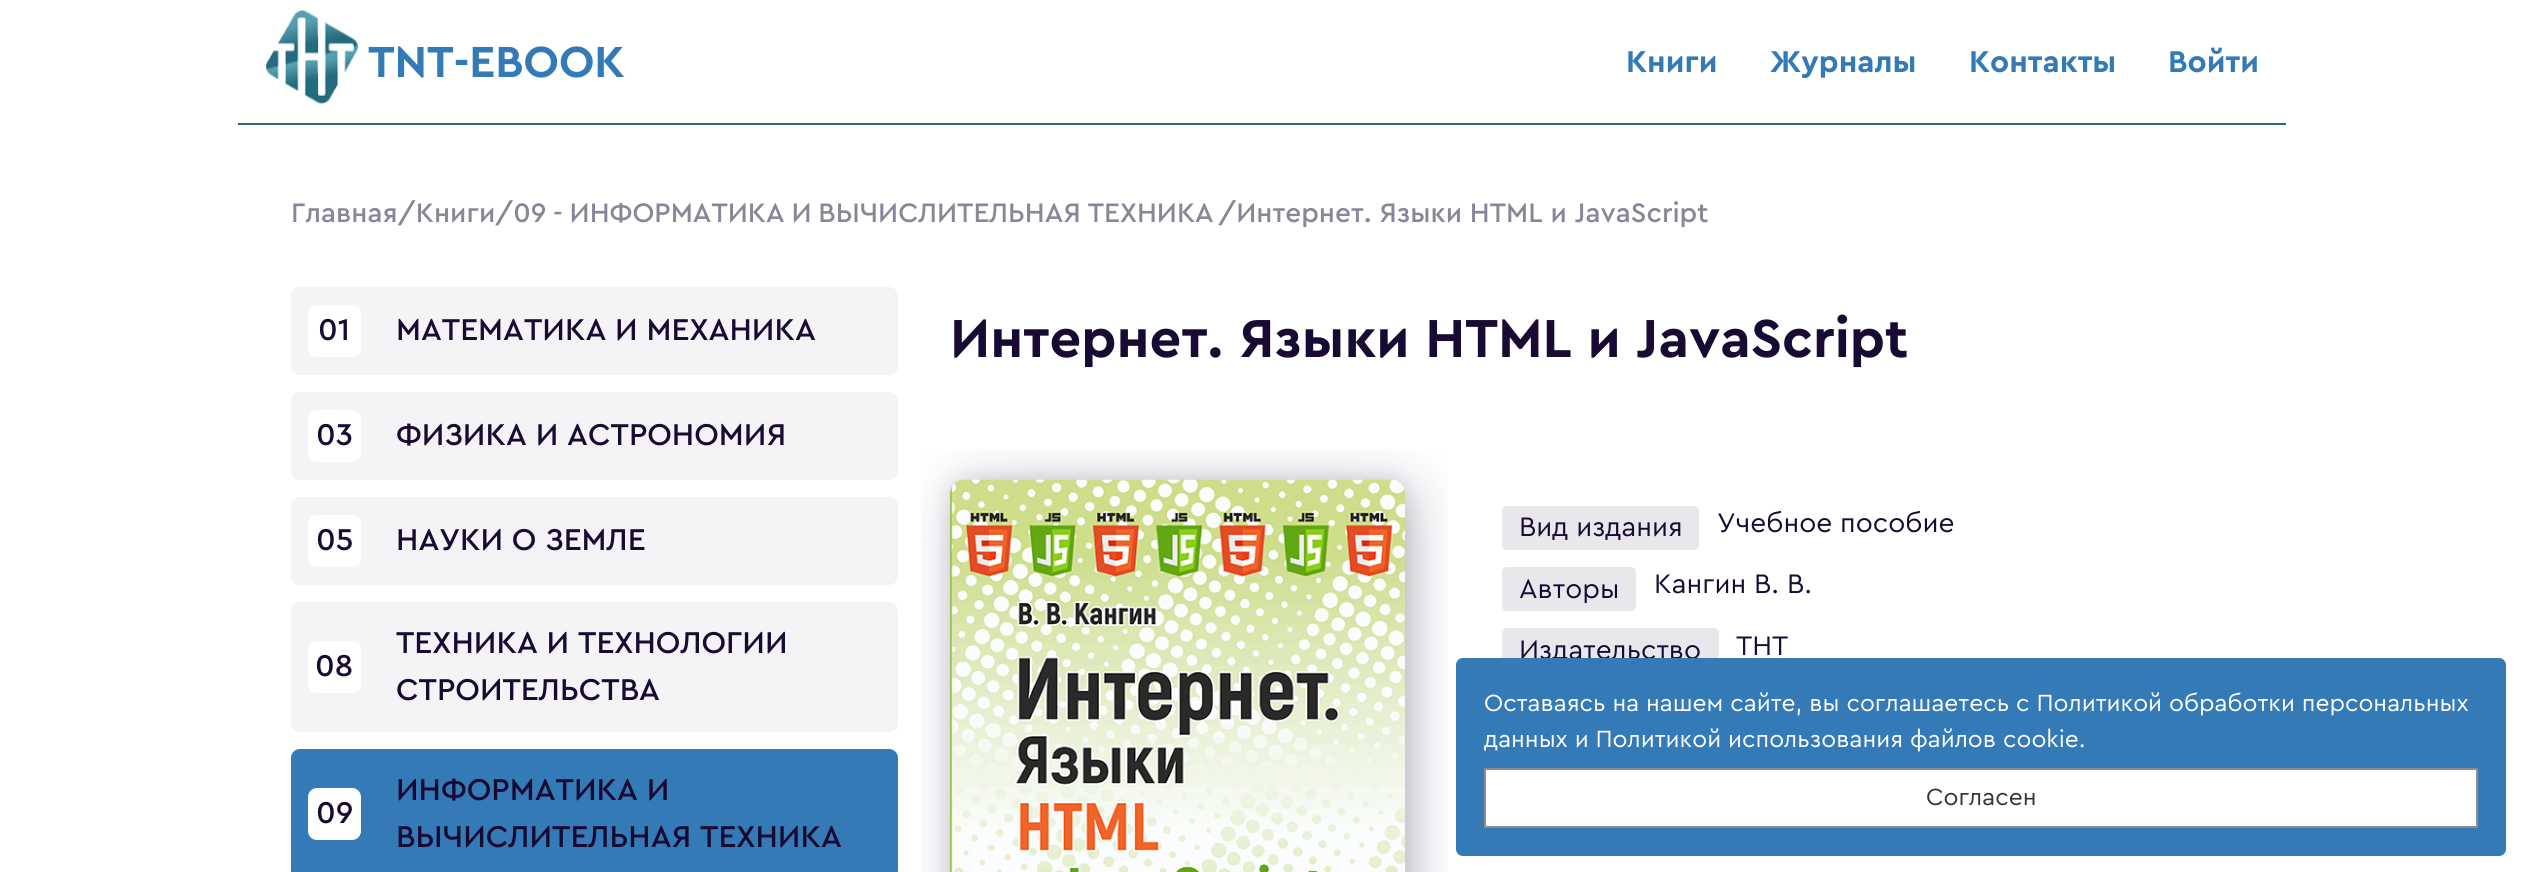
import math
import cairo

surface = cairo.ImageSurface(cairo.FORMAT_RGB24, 2523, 872)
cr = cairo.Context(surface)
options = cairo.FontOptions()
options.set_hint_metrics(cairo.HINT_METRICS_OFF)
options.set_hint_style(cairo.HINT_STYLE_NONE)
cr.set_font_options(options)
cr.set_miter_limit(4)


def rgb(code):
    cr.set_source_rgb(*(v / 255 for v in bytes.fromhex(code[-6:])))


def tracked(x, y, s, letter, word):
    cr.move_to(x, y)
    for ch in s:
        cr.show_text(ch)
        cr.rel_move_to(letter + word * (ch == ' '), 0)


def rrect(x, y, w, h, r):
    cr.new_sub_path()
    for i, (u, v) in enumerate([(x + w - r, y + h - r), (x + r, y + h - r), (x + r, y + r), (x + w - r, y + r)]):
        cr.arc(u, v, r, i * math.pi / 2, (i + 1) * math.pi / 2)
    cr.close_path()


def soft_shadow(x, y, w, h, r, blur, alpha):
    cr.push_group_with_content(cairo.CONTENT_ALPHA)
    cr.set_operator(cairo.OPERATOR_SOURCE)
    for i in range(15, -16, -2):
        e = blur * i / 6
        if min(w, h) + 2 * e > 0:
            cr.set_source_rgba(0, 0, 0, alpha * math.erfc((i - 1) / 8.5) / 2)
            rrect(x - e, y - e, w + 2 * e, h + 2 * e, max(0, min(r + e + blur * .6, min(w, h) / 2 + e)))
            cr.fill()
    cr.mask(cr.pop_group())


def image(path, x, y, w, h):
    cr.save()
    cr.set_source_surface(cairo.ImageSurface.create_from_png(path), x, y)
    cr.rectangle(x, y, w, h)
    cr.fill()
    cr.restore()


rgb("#ffffff")
cr.paint()
rgb("#2d6987")
cr.rectangle(238, 123, 2048, 2)
cr.fill()
image("img/1.png", 265, 10, 94, 94)
rgb("#f4f3f5")
rrect(291, 287, 607, 88, 9)
cr.fill()
rgb("#ffffff")
rrect(308, 305, 53, 52, 9)
cr.fill()
rgb("#f4f3f5")
rrect(291, 392, 607, 88, 9)
cr.fill()
rgb("#ffffff")
rrect(308, 410, 53, 52, 9)
cr.fill()
rgb("#f4f3f5")
rrect(291, 497, 607, 88, 9)
cr.fill()
rgb("#ffffff")
rrect(308, 515, 53, 52, 9)
cr.fill()
rgb("#f4f3f5")
rrect(291, 602, 607, 130, 9)
cr.fill()
rgb("#ffffff")
rrect(308, 641, 53, 52, 9)
cr.fill()
rgb("#337ab7")
rrect(291, 749, 607, 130, 9)
cr.fill()
rgb("#ffffff")
rrect(308, 788, 53, 52, 9)
cr.fill()
rgb("#190a33")
soft_shadow(950, 480, 455, 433, 14, 9, 0.1)
rgb("#d9d9d9")
rrect(950, 480, 455, 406, 14)
cr.fill()
image("img/2.png", 921, 450, 527, 422)
rgb("#e8e7eb")
rrect(1502, 506, 197, 44, 5)
cr.fill()
rrect(1502, 567, 134, 44, 5)
cr.fill()
rrect(1502, 628, 217, 44, 5)
cr.fill()
cr.select_font_face("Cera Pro", cairo.FONT_SLANT_NORMAL, cairo.FONT_WEIGHT_BOLD)
cr.set_font_size(45.5)
rgb("#337ab7")
cr.move_to(368, 77)
cr.show_text("ТNT-EBOOK")
cr.set_font_size(31.5)
for x, y, s in [
    (1626, 72, "Книги"),
    (1770, 72, "Журналы"),
    (1969, 72, "Контакты"),
    (2168, 72, "Войти"),
]:
    cr.move_to(x, y)
    cr.show_text(s)
cr.select_font_face("Cera Pro Medium")
cr.set_font_size(28)
rgb("#8c8599")
cr.move_to(291, 222)
cr.show_text("Главная/Книги")
tracked(495, 222, "/09 - ИНФОРМАТИКА И ВЫЧИСЛИТЕЛЬНАЯ ТЕХНИКА", 0, -1)
cr.move_to(1218, 222)
cr.show_text("/Интернет. Языки HTML и JavaScript")
cr.set_font_size(31.5)
rgb("#190a33")
for x, y, s in [
    (318, 340, "01"),
    (396, 340, "МАТЕМАТИКА И МЕХАНИКА"),
    (316, 445, "03"),
    (396, 445, "ФИЗИКА И АСТРОНОМИЯ"),
    (316, 550, "05"),
    (396, 550, "НАУКИ О ЗЕМЛЕ"),
    (315, 676, "08"),
    (396, 653, "ТЕХНИКА И ТЕХНОЛОГИИ"),
    (396, 700, "СТРОИТЕЛЬСТВА"),
    (316, 823, "09"),
    (396, 800, "ИНФОРМАТИКА И"),
    (396, 847, "ВЫЧИСЛИТЕЛЬНАЯ ТЕХНИКА"),
]:
    cr.move_to(x, y)
    cr.show_text(s)
cr.select_font_face("Cera Pro", cairo.FONT_SLANT_NORMAL, cairo.FONT_WEIGHT_BOLD)
cr.set_font_size(56)
cr.move_to(950, 357)
cr.show_text("Интернет. Языки HTML и JavaScript")
cr.select_font_face("Cera Pro")
cr.set_font_size(28)
for x, y, s in [
    (1519, 536, "Вид издания"),
    (1717, 532, "Учебное пособие"),
    (1519, 598, "Авторы"),
    (1654, 593, "Кангин В. В."),
    (1519, 659, "Издательство"),
    (1736, 655, "ТНТ"),
]:
    cr.move_to(x, y)
    cr.show_text(s)
rgb("#337ab7")
rrect(1456, 658, 1050, 198, 7)
cr.fill()
cr.set_font_size(24.5)
rgb("#ffffff")
cr.move_to(1484, 711)
cr.show_text("Оставаясь на нашем сайте, вы соглашаетесь с Политикой обработки персональных")
cr.move_to(1484, 747)
cr.show_text("данных и Политикой использования файлов cookie.")
cr.rectangle(1485, 769, 992, 58)
cr.fill_preserve()
rgb("#8c8c8c")
cr.stroke()
rgb("#333333")
cr.move_to(1926, 805)
cr.show_text("Согласен")
surface.write_to_png("page.png")
